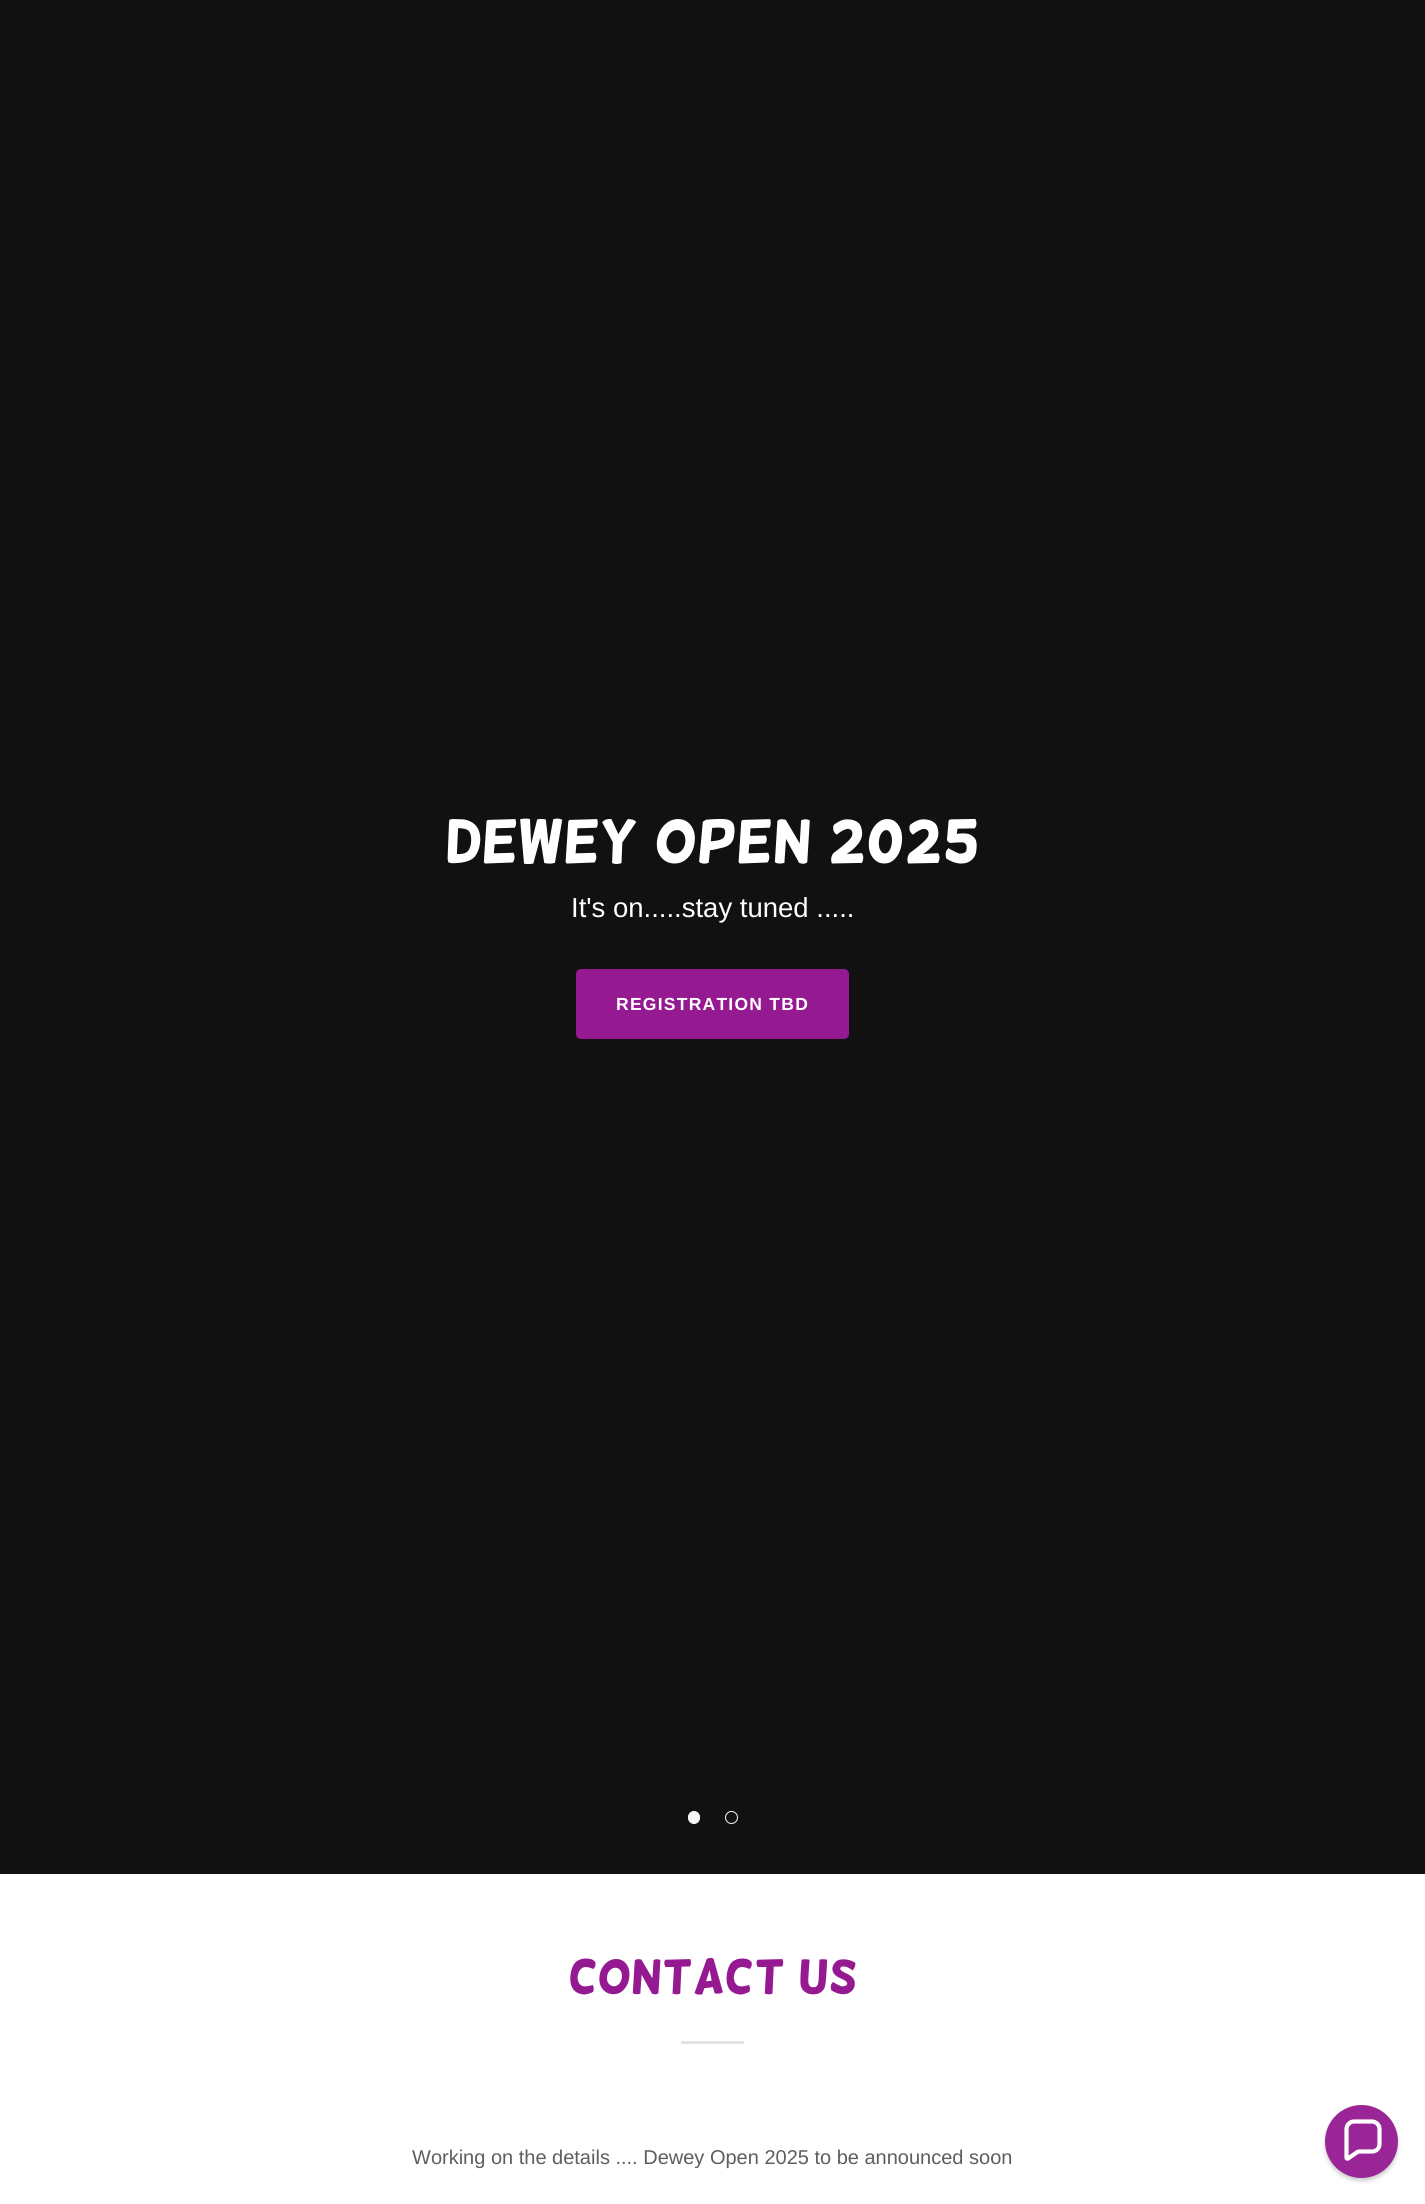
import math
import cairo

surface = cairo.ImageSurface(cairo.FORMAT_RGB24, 1425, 2204)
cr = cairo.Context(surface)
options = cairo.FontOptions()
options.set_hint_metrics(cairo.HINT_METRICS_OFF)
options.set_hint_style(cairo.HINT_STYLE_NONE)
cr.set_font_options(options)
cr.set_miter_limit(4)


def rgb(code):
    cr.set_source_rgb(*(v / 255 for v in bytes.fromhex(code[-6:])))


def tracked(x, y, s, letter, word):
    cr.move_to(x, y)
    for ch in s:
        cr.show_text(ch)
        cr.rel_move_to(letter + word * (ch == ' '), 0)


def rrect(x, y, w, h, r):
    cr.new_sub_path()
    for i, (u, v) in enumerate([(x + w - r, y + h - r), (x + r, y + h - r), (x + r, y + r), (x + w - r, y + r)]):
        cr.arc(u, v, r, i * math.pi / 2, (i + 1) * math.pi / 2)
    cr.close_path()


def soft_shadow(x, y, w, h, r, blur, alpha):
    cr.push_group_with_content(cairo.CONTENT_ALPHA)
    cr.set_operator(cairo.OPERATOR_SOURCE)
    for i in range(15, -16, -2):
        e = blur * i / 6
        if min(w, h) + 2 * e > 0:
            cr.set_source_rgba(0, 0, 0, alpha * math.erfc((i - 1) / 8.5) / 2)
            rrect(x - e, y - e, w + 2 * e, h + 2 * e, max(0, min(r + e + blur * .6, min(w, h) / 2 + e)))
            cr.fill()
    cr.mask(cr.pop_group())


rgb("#ffffff")
cr.paint()
rgb("#111111")
cr.rectangle(0, 0, 1425, 1874)
cr.fill()
rgb("#f7f7f7")
rrect(688.5, 1811.5, 11, 12, 5.5)
cr.fill_preserve()
cr.set_line_width(1)
cr.stroke()
cr.arc(731.5, 1817.5, 6, 0, 2 * math.pi)
cr.stroke()
rgb("#951990")
rrect(576, 969, 273, 70, 5)
cr.fill()
rgb("#e2e2e2")
cr.rectangle(681, 2041, 63, 3)
cr.fill()
rgb("#0d0d0d")
soft_shadow(1325, 2109, 73, 72, 36, 2, 0.2)
rgb("#9a2596")
cr.arc(1361.5, 2141.5, 36.5, 0, 2 * math.pi)
cr.fill()
cr.new_path()
cr.move_to(1372, 2121.5)
cr.line_to(1354, 2121.5)
cr.curve_to(1350, 2121.5, 1346.5, 2125, 1346.5, 2129)
cr.line_to(1346.5, 2158)
cr.curve_to(1346.5, 2158.5, 1347.5, 2159, 1348, 2158.5)
cr.line_to(1356, 2153)
cr.curve_to(1357, 2152, 1358.5, 2151.5, 1359.5, 2151.5)
cr.line_to(1372, 2151.5)
cr.curve_to(1376, 2151.5, 1379.5, 2148.5, 1379.5, 2144)
cr.line_to(1379.5, 2129)
cr.curve_to(1379.5, 2125, 1376, 2121.5, 1372, 2121.5)
cr.close_path()
rgb("#ffffff")
cr.set_line_width(4.2)
cr.stroke()
cr.select_font_face("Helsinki")
cr.set_font_size(60)
cr.move_to(446, 862)
cr.show_text("Dewey Open 2025")
cr.select_font_face("Liberation Sans")
cr.set_font_size(27.5)
cr.move_to(571, 917)
cr.show_text("It's on.....stay tuned .....")
cr.select_font_face("Liberation Sans", cairo.FONT_SLANT_NORMAL, cairo.FONT_WEIGHT_BOLD)
cr.set_font_size(17.5)
tracked(616, 1010, "REGISTRATION TBD", 1.25, 0)
cr.select_font_face("Helsinki")
cr.set_font_size(47.5)
rgb("#951990")
cr.move_to(568, 1993)
cr.show_text("Contact Us")
cr.select_font_face("Liberation Sans")
cr.set_font_size(20)
rgb("#5e5e5e")
cr.move_to(412, 2164)
cr.show_text("Working on the details .... Dewey Open 2025 to be announced soon")
surface.write_to_png("page.png")
